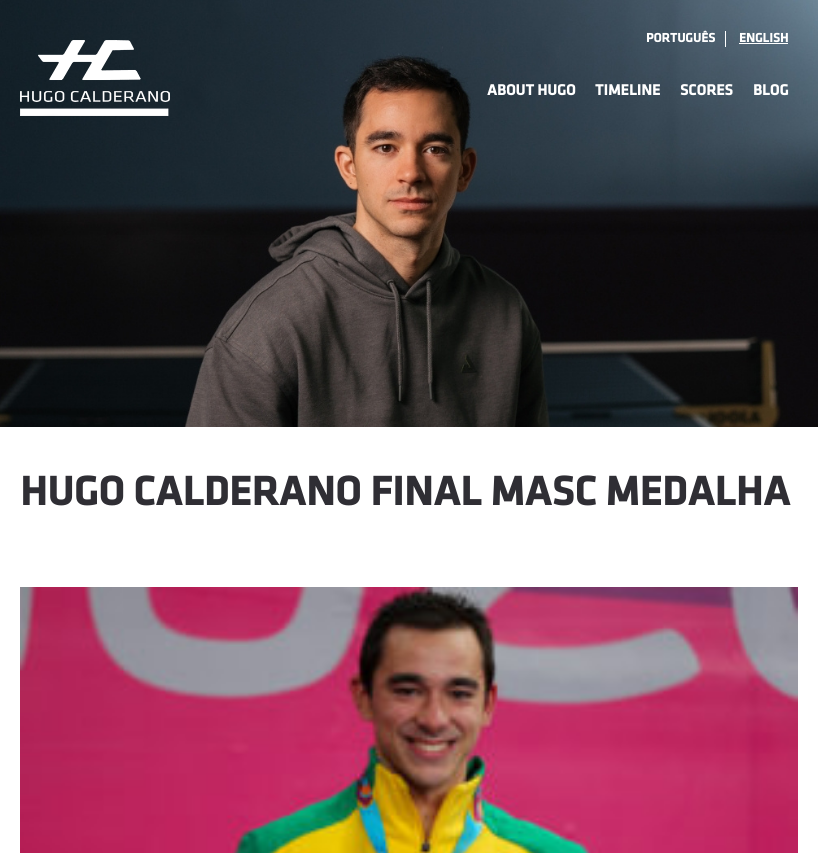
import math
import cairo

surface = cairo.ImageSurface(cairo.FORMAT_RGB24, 818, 853)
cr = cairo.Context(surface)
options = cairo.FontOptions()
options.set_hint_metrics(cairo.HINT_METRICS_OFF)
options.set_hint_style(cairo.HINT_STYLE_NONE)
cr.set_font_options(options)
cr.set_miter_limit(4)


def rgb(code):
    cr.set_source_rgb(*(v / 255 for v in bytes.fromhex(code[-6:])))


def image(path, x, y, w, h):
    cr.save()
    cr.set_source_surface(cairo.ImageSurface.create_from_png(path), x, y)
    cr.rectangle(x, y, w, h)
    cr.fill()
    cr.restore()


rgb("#ffffff")
cr.paint()
image("img/1.png", 0, 0, 818, 427)
rgb("#ffffff")
cr.rectangle(725, 31, 1, 16)
cr.fill()
cr.rectangle(739, 43, 49, 1)
cr.fill()
image("img/2.png", 20, 40, 150, 76)
image("img/3.png", 20, 587, 778, 266)
cr.select_font_face("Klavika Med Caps", cairo.FONT_SLANT_NORMAL, cairo.FONT_WEIGHT_BOLD)
cr.set_font_size(13)
cr.move_to(646, 42)
cr.show_text("PORTUGUÊS")
cr.move_to(739, 42)
cr.show_text("ENGLISH")
cr.set_font_size(15.5)
for x, y, s in [
    (487, 95, "ABOUT HUGO"),
    (595, 95, "TIMELINE"),
    (680, 95, "SCORES"),
    (753, 95, "BLOG"),
]:
    cr.move_to(x, y)
    cr.show_text(s)
cr.set_font_size(42)
rgb("#2f2e34")
cr.move_to(20, 505)
cr.show_text("HUGO CALDERANO FINAL MASC MEDALHA")
surface.write_to_png("page.png")
